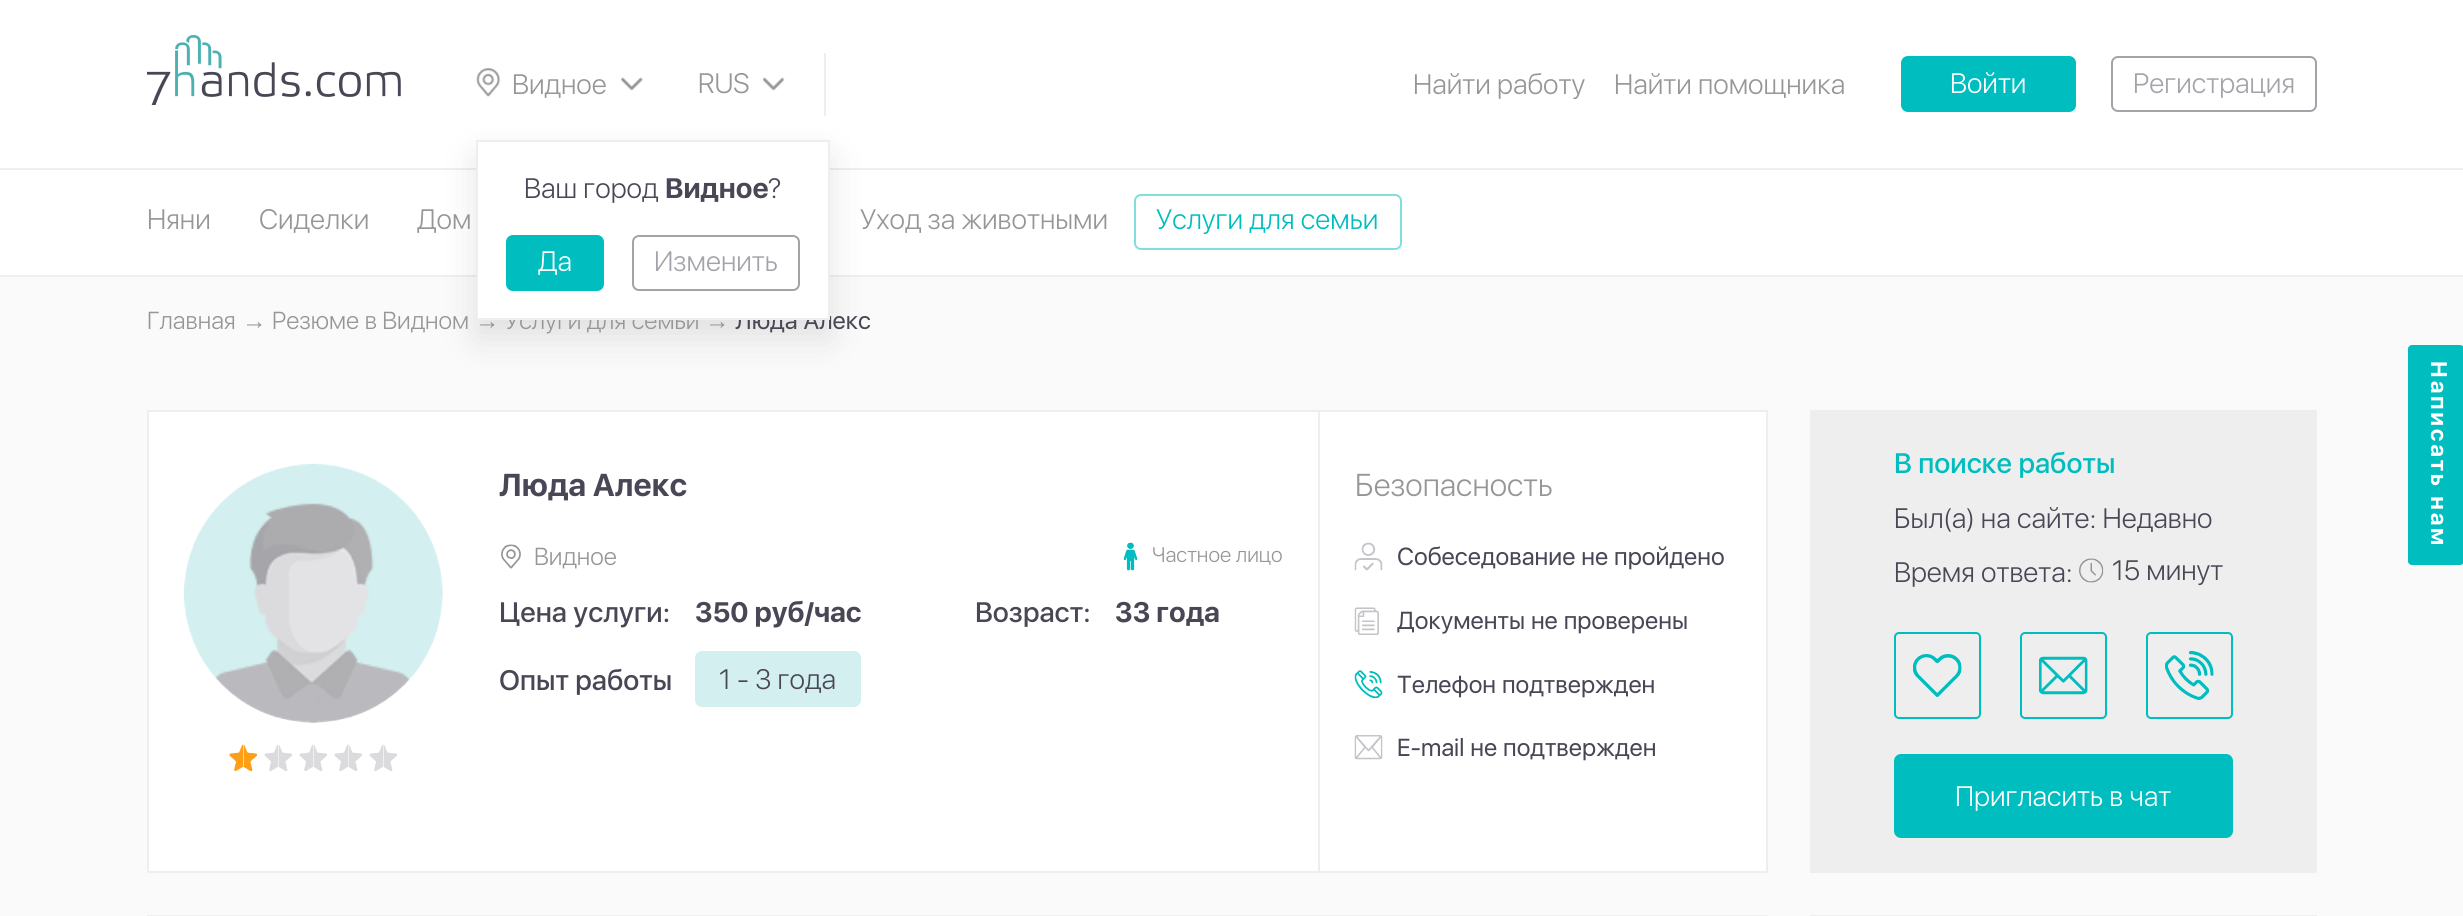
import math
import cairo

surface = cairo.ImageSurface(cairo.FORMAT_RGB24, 2463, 916)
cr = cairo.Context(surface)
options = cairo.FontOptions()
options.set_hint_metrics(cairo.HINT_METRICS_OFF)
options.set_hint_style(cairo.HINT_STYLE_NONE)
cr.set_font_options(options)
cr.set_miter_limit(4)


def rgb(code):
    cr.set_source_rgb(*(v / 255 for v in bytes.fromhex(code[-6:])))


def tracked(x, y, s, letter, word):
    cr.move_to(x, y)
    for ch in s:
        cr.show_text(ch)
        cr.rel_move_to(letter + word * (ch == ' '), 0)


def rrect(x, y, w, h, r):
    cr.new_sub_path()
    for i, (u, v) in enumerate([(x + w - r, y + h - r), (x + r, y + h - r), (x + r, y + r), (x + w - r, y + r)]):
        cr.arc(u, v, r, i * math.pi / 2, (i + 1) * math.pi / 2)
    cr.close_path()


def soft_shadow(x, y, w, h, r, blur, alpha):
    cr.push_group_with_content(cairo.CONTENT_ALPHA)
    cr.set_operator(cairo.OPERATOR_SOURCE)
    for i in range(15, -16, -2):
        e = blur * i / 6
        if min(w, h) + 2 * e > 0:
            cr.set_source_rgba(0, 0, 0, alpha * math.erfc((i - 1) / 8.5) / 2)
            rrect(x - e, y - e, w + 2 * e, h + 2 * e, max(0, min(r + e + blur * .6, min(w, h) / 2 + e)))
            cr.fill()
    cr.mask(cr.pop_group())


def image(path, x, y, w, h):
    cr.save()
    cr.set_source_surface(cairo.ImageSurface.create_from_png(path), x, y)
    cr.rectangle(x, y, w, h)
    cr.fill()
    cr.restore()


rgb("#fafafa")
cr.paint()
rgb("#ffffff")
cr.rectangle(0, 0, 2463, 168)
cr.fill()
rgb("#eeeeee")
cr.rectangle(0, 168, 2463, 2)
cr.fill()
image("img/1.png", 147, 35, 254, 70)
image("img/2.png", 476, 68, 25, 29)
image("img/3.png", 621, 77, 22, 14)
image("img/4.png", 763, 77, 22, 14)
cr.rectangle(824, 53, 2, 63)
cr.fill()
rgb("#00bdc0")
rrect(1901, 56, 175, 56, 7)
cr.fill()
rrect(2112, 57, 204, 54, 6)
rgb("#a4a3aa")
cr.stroke()
rgb("#ffffff")
cr.rectangle(0, 170, 2463, 105)
cr.fill()
rgb("#eeeeee")
cr.rectangle(0, 275, 2463, 2)
cr.fill()
rgb("#000000")
soft_shadow(476, 158, 354, 180, 0, 17.5, 0.1)
rrect(1135, 195, 266, 54, 6)
rgb("#80dee0")
cr.stroke()
rgb("#ffffff")
cr.rectangle(148, 411, 1619, 461)
cr.fill_preserve()
rgb("#eeeeee")
cr.stroke()
image("img/5.png", 183, 463, 260, 260)
image("img/6.png", 229, 744, 14, 27)
image("img/7.png", 243, 744, 14, 27)
image("img/8.png", 264, 744, 14, 27)
image("img/9.png", 278, 744, 14, 27)
image("img/8.png", 299, 744, 14, 27)
image("img/9.png", 313, 744, 14, 27)
image("img/8.png", 334, 744, 14, 27)
image("img/9.png", 348, 744, 14, 27)
image("img/8.png", 369, 744, 14, 27)
image("img/9.png", 383, 744, 14, 27)
image("img/10.png", 501, 544, 20, 25)
image("img/11.png", 1123, 542, 15, 29)
rgb("#d3eff0")
rrect(695, 651, 166, 56, 7)
cr.fill()
rgb("#eeeeee")
cr.rectangle(1318, 411, 2, 461)
cr.fill()
image("img/12.png", 1354, 542, 29, 29)
image("img/13.png", 1354, 607, 25, 28)
image("img/14.png", 1354, 670, 29, 29)
image("img/15.png", 1354, 735, 29, 25)
cr.rectangle(1810, 410, 507, 463)
cr.fill()
image("img/16.png", 2079, 558, 25, 25)
rrect(1895, 633, 85, 85, 4)
rgb("#00bdc0")
cr.stroke()
image("img/17.png", 1913, 654, 49, 43)
rrect(2021, 633, 85, 85, 4)
cr.stroke()
image("img/18.png", 2039, 656, 49, 39)
rrect(2147, 633, 85, 85, 4)
cr.stroke()
image("img/19.png", 2165, 651, 49, 49)
rrect(1894, 754, 339, 84, 7)
cr.fill()
cr.rectangle(148, 916, 1619, 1)
rgb("#eeeeee")
cr.stroke()
cr.rectangle(1811, 916, 505, 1)
cr.stroke()
rgb("#00bdc0")
rrect(2408, 345, 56, 220, 4)
cr.fill()
cr.select_font_face("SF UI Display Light")
cr.set_font_size(28)
rgb("#969696")
for x, y, s in [
    (512, 94, "Видное"),
    (698, 93, "RUS"),
    (1413, 94, "Найти работу"),
    (1614, 94, "Найти помощника"),
]:
    cr.move_to(x, y)
    cr.show_text(s)
rgb("#ffffff")
cr.move_to(1950, 93)
cr.show_text("Войти")
rgb("#a4a3aa")
cr.move_to(2133, 93)
cr.show_text("Регистрация")
rgb("#969696")
for x, y, s in [
    (147, 229, "Няни"),
    (259, 229, "Сиделки"),
    (417, 229, "Дом"),
    (860, 229, "Уход за животными"),
]:
    cr.move_to(x, y)
    cr.show_text(s)
rgb("#00bdc0")
cr.move_to(1156, 229)
cr.show_text("Услуги для семьи")
cr.set_font_size(24.5)
rgb("#969696")
cr.move_to(147, 329)
cr.show_text("Главная")
cr.select_font_face("Liberation Sans")
cr.move_to(242, 329)
cr.show_text("→")
cr.select_font_face("SF UI Display Light")
cr.move_to(272, 329)
cr.show_text("Резюме в Видном")
cr.select_font_face("Liberation Sans")
cr.move_to(475, 329)
cr.show_text("→")
cr.select_font_face("SF UI Display Light")
cr.move_to(505, 329)
cr.show_text("Услуги для семьи")
cr.select_font_face("Liberation Sans")
cr.move_to(705, 329)
cr.show_text("→")
cr.select_font_face("SF UI Display")
rgb("#494655")
cr.move_to(735, 329)
cr.show_text("Люда Алекс")
rgb("#ffffff")
cr.rectangle(477, 141, 352, 178)
cr.fill_preserve()
rgb("#eeeeee")
cr.stroke()
cr.select_font_face("SF UI Display Light")
cr.set_font_size(28)
rgb("#494655")
cr.move_to(768, 198)
cr.show_text("?")
cr.select_font_face("SF UI Display", cairo.FONT_SLANT_NORMAL, cairo.FONT_WEIGHT_BOLD)
cr.move_to(665, 198)
cr.show_text("Видное")
cr.select_font_face("SF UI Display Light")
cr.move_to(524, 198)
cr.show_text("Ваш город")
rrect(633, 236, 166, 54, 6)
rgb("#a4a3aa")
cr.stroke()
cr.move_to(654, 271)
cr.show_text("Изменить")
rgb("#00bdc0")
rrect(506, 235, 98, 56, 7)
cr.fill()
rgb("#ffffff")
cr.move_to(538, 271)
cr.show_text("Да")
cr.select_font_face("SF UI Display", cairo.FONT_SLANT_NORMAL, cairo.FONT_WEIGHT_BOLD)
cr.set_font_size(31.5)
rgb("#494655")
cr.move_to(499, 496)
cr.show_text("Люда Алекс")
cr.select_font_face("SF UI Display Light")
cr.set_font_size(24.5)
rgb("#969696")
cr.move_to(534, 565)
cr.show_text("Видное")
cr.set_font_size(21)
cr.move_to(1152, 562)
cr.show_text("Частное лицо")
cr.select_font_face("SF UI Display Medium")
cr.set_font_size(28)
rgb("#494655")
cr.move_to(499, 622)
cr.show_text("Цена услуги:")
cr.select_font_face("SF UI Display", cairo.FONT_SLANT_NORMAL, cairo.FONT_WEIGHT_BOLD)
cr.move_to(695, 622)
cr.show_text("350 руб/час")
cr.select_font_face("SF UI Display Medium")
cr.move_to(975, 622)
cr.show_text("Возраст:")
cr.select_font_face("SF UI Display", cairo.FONT_SLANT_NORMAL, cairo.FONT_WEIGHT_BOLD)
cr.move_to(1115, 622)
cr.show_text("33 года")
cr.select_font_face("SF UI Display Medium")
cr.move_to(499, 690)
cr.show_text("Опыт работы")
cr.select_font_face("SF UI Display Light")
cr.move_to(719, 689)
cr.show_text("1 - 3 года")
cr.set_font_size(31.5)
rgb("#969696")
cr.move_to(1355, 496)
cr.show_text("Безопасность")
cr.select_font_face("SF UI Display")
cr.set_font_size(24.5)
rgb("#494655")
for x, y, s in [
    (1397, 565, "Собеседование не пройдено"),
    (1397, 629, "Документы не проверены"),
    (1397, 693, "Телефон подтвержден"),
    (1397, 756, "E-mail не подтвержден"),
]:
    cr.move_to(x, y)
    cr.show_text(s)
cr.select_font_face("SF UI Display Medium")
cr.set_font_size(28)
rgb("#00bdc0")
cr.move_to(1894, 473)
cr.show_text("В поиске работы")
cr.select_font_face("SF UI Display Light")
rgb("#494655")
for x, y, s in [
    (1894, 528, "Был(а) на сайте: Недавно"),
    (1894, 582, "Время ответа:"),
    (2112, 580, "15 минут"),
]:
    cr.move_to(x, y)
    cr.show_text(s)
rgb("#ffffff")
cr.move_to(1955, 806)
cr.show_text("Пригласить в чат")
cr.select_font_face("SF UI Display", cairo.FONT_SLANT_NORMAL, cairo.FONT_WEIGHT_BOLD)
cr.set_font_size(22.5)
cr.save()
cr.translate(2431, 361)
cr.rotate(90 * math.pi / 180)
tracked(0, 0, "Написать нам", 2.75, 0)
cr.restore()
surface.write_to_png("page.png")
